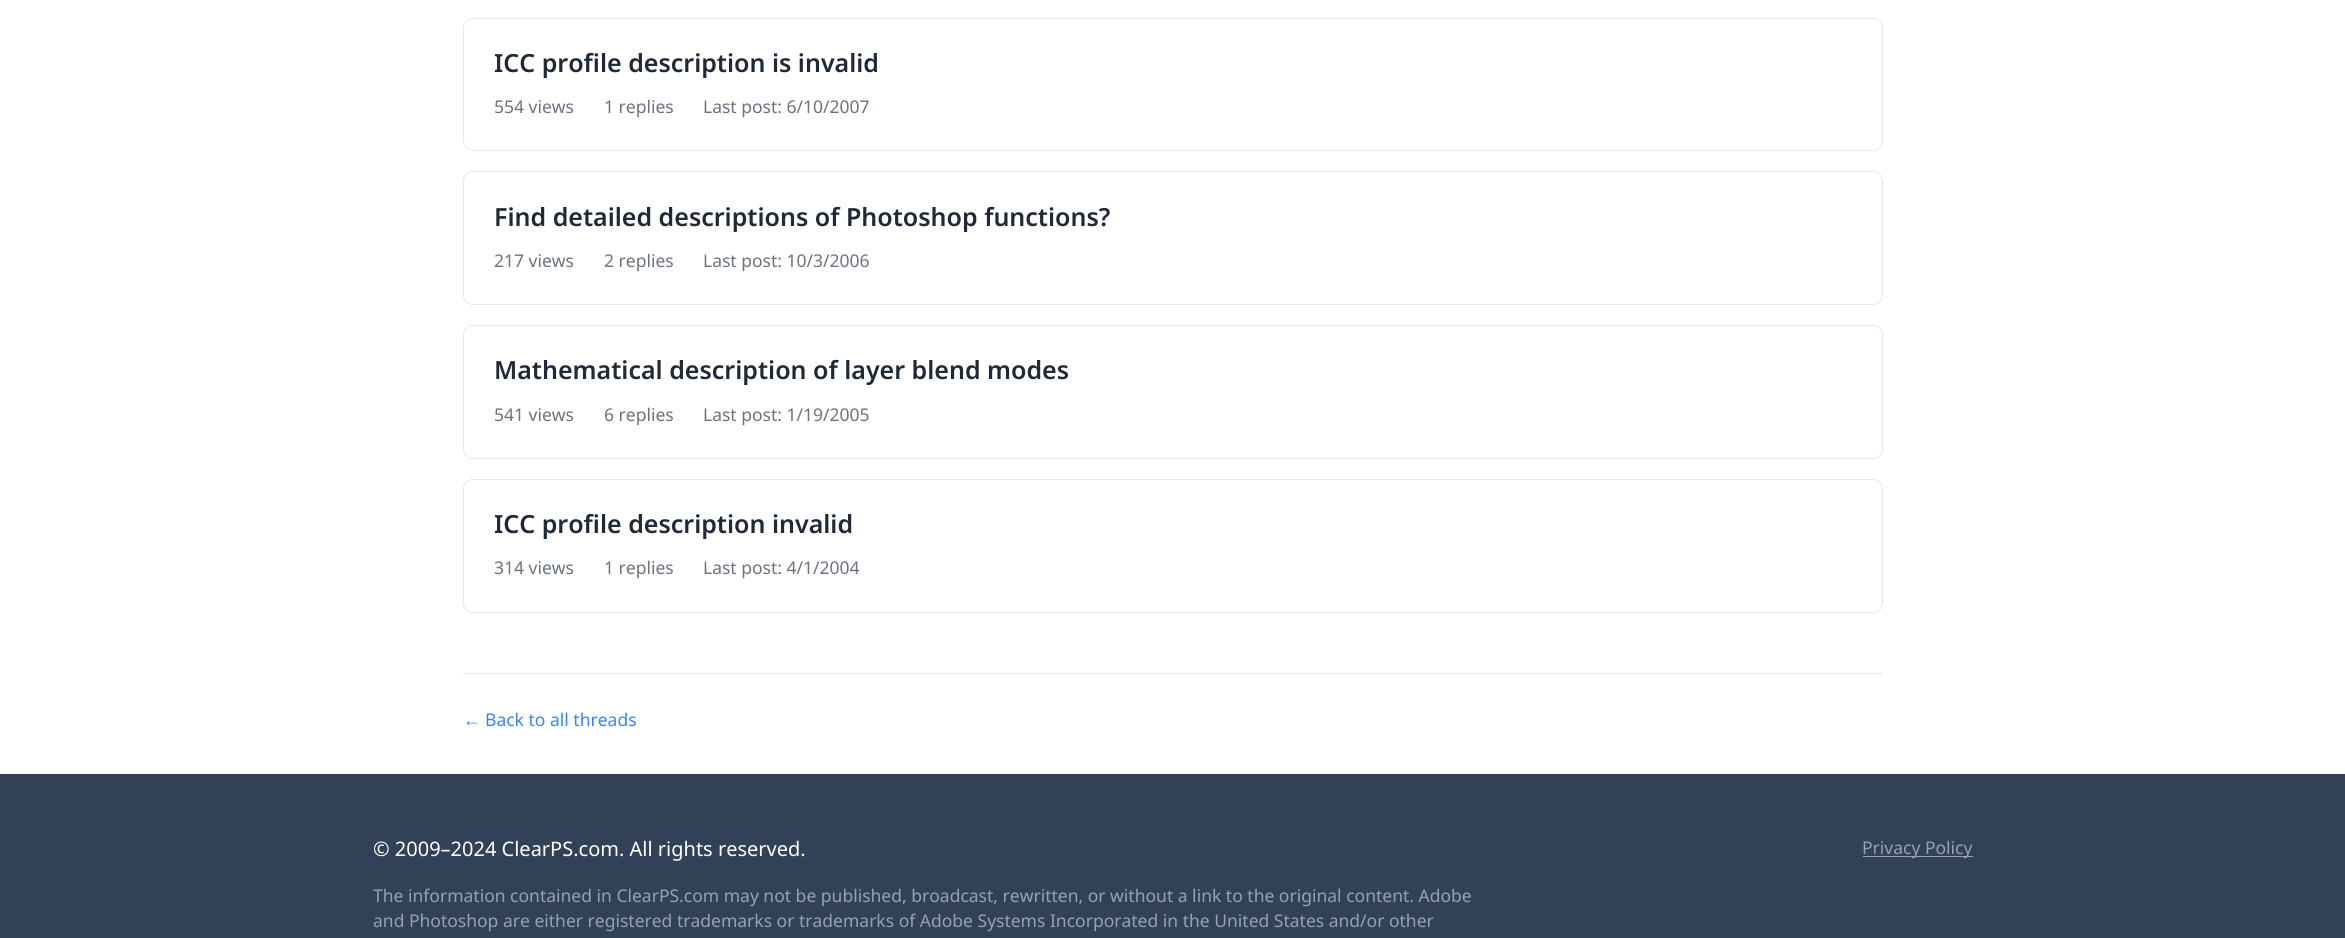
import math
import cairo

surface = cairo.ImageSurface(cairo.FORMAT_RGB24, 2345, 938)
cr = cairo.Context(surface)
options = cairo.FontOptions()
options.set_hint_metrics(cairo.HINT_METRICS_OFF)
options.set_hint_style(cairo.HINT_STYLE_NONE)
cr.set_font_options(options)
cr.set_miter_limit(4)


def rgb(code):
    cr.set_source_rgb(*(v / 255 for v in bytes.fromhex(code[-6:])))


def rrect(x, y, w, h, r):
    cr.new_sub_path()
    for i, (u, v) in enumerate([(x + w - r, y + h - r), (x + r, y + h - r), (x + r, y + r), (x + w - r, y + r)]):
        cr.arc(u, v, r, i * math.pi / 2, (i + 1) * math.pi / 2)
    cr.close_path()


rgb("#ffffff")
cr.paint()
rrect(463.5, 18.5, 1419, 132, 9.5)
rgb("#e5e7eb")
cr.set_line_width(1)
cr.stroke()
rrect(463.5, 171.5, 1419, 133, 9.5)
cr.stroke()
rrect(463.5, 325.5, 1419, 133, 9.5)
cr.stroke()
rrect(463.5, 479.5, 1419, 133, 9.5)
cr.stroke()
for x, y, w, h, color in [
    (463, 673, 1420, 1, "#e5e7eb"),
    (0, 774, 2345, 164, "#314158"),
    (1863, 856, 110, 1, "#99a1af"),
]:
    rgb(color)
    cr.rectangle(x, y, w, h)
    cr.fill()
cr.select_font_face("Noto Sans SemiBold")
cr.set_font_size(25)
rgb("#1f2937")
cr.move_to(494, 72)
cr.show_text("ICC profile description is invalid")
cr.select_font_face("Noto Sans")
cr.set_font_size(17.5)
rgb("#6b7280")
for x, y, s in [
    (494, 113, "554 views"),
    (604, 113, "1 replies"),
    (703, 113, "Last post: 6/10/2007"),
]:
    cr.move_to(x, y)
    cr.show_text(s)
cr.select_font_face("Noto Sans SemiBold")
cr.set_font_size(25)
rgb("#1f2937")
cr.move_to(494, 226)
cr.show_text("Find detailed descriptions of Photoshop functions?")
cr.select_font_face("Noto Sans")
cr.set_font_size(17.5)
rgb("#6b7280")
for x, y, s in [
    (494, 267, "217 views"),
    (604, 267, "2 replies"),
    (703, 267, "Last post: 10/3/2006"),
]:
    cr.move_to(x, y)
    cr.show_text(s)
cr.select_font_face("Noto Sans SemiBold")
cr.set_font_size(25)
rgb("#1f2937")
cr.move_to(494, 379)
cr.show_text("Mathematical description of layer blend modes")
cr.select_font_face("Noto Sans")
cr.set_font_size(17.5)
rgb("#6b7280")
for x, y, s in [
    (494, 421, "541 views"),
    (604, 421, "6 replies"),
    (703, 421, "Last post: 1/19/2005"),
]:
    cr.move_to(x, y)
    cr.show_text(s)
cr.select_font_face("Noto Sans SemiBold")
cr.set_font_size(25)
rgb("#1f2937")
cr.move_to(494, 533)
cr.show_text("ICC profile description invalid")
cr.select_font_face("Noto Sans")
cr.set_font_size(17.5)
rgb("#6b7280")
for x, y, s in [
    (494, 574, "314 views"),
    (604, 574, "1 replies"),
    (703, 574, "Last post: 4/1/2004"),
]:
    cr.move_to(x, y)
    cr.show_text(s)
cr.select_font_face("Liberation Sans")
rgb("#3b82f6")
cr.move_to(463, 726)
cr.show_text("←")
cr.select_font_face("Noto Sans")
cr.move_to(485, 726)
cr.show_text("Back to all threads")
cr.set_font_size(20)
rgb("#ffffff")
cr.move_to(373, 856)
cr.show_text("© 2009–2024 ClearPS.com. All rights reserved.")
cr.set_font_size(17.5)
rgb("#99a1af")
for x, y, s in [
    (1862, 854, "Privacy Policy"),
    (373, 902, "The information contained in ClearPS.com may not be published, broadcast, rewritten, or without a link to the original content. Adobe"),
    (373, 927, "and Photoshop are either registered trademarks or trademarks of Adobe Systems Incorporated in the United States and/or other"),
]:
    cr.move_to(x, y)
    cr.show_text(s)
surface.write_to_png("page.png")
